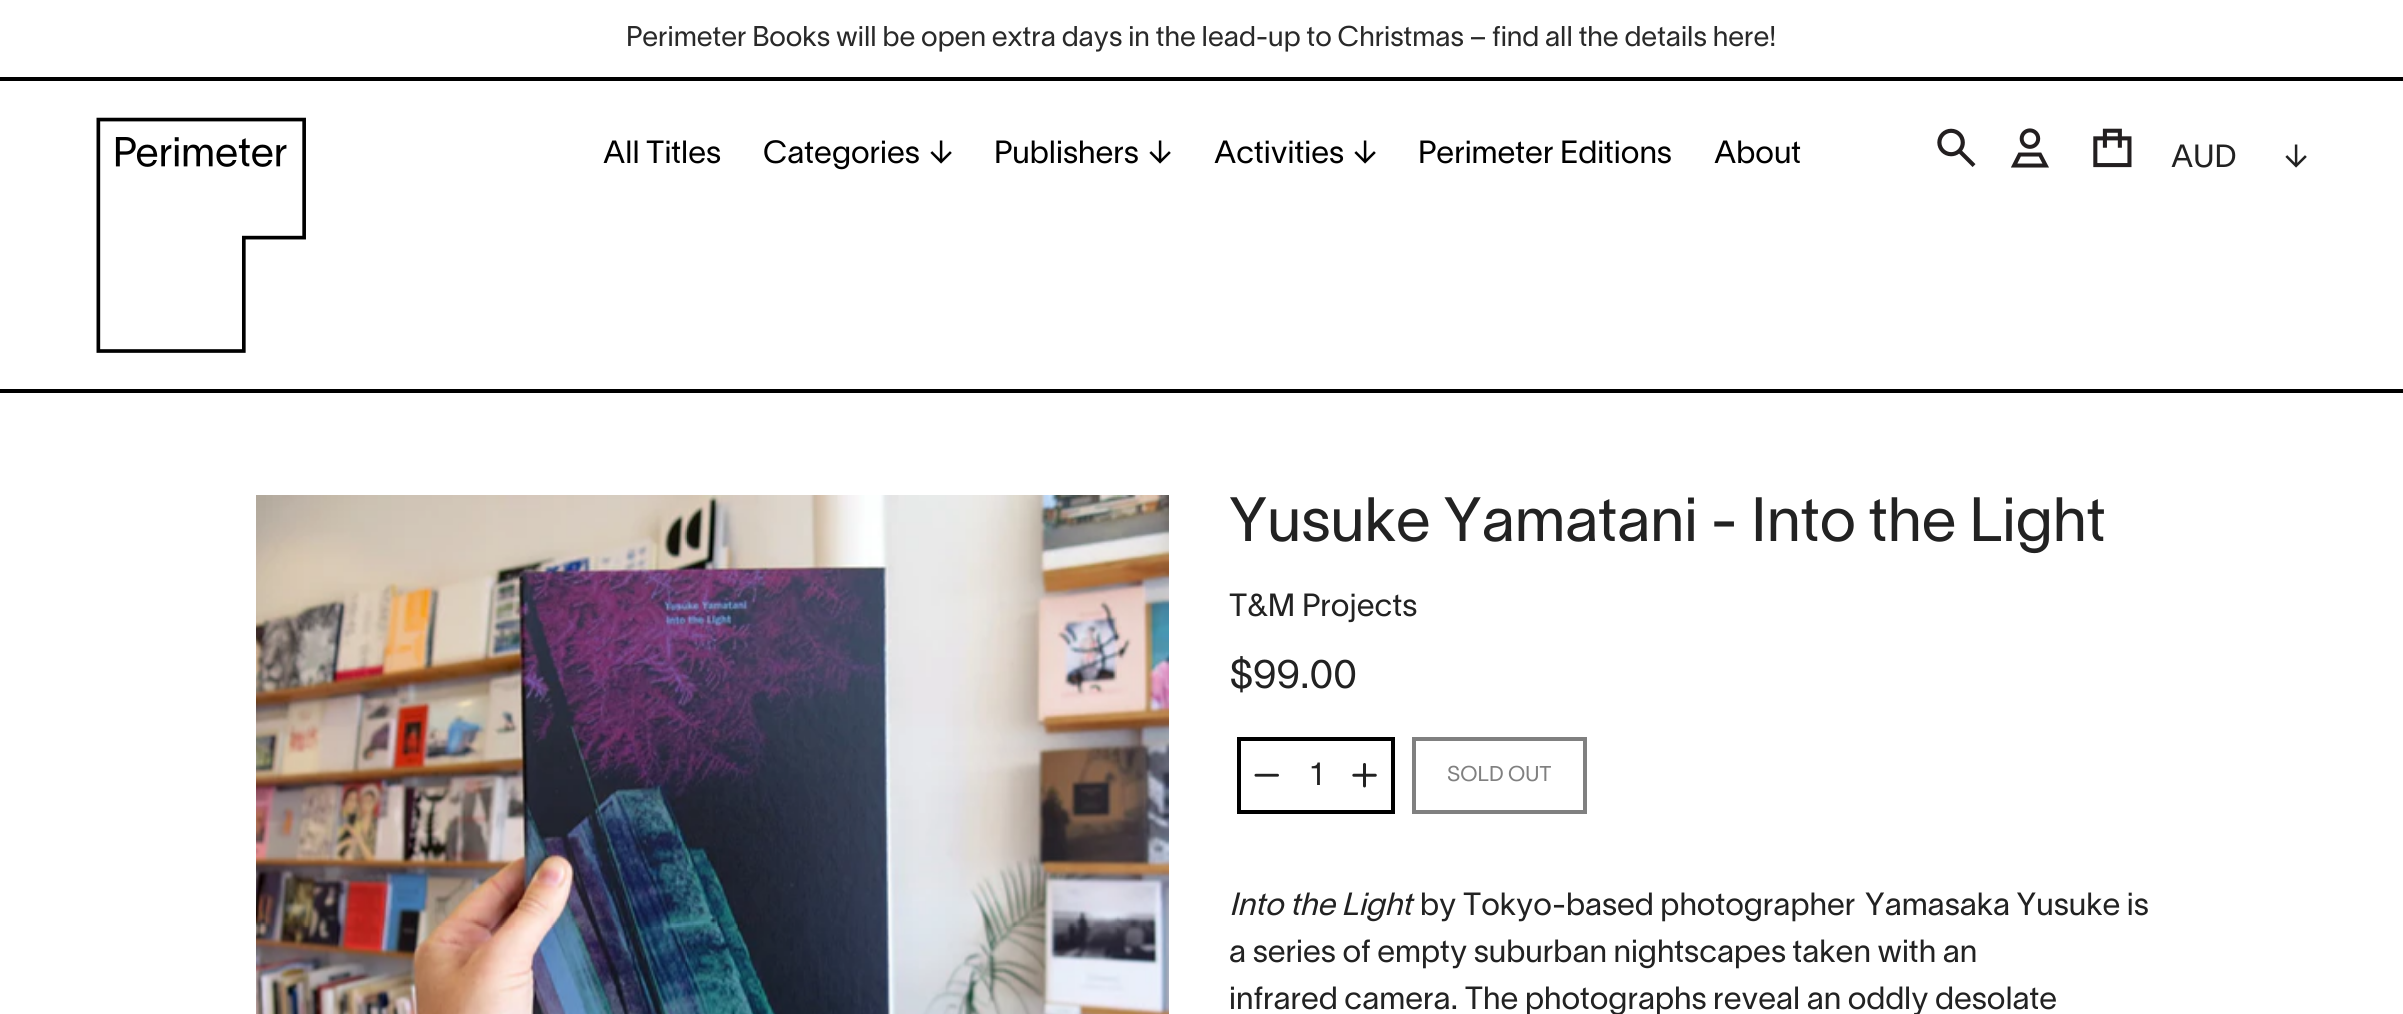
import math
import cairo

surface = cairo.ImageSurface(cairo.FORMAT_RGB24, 2403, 1014)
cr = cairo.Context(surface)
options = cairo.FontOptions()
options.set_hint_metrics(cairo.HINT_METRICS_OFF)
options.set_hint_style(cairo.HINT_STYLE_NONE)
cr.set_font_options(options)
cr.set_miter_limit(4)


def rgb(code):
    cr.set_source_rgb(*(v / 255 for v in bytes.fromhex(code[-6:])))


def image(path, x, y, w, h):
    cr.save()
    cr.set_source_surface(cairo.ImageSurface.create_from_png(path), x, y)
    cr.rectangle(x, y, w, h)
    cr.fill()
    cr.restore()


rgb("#ffffff")
cr.paint()
rgb("#000000")
cr.rectangle(0, 77, 2403, 4)
cr.fill()
cr.rectangle(0, 389, 2403, 4)
cr.fill()
image("img/1.png", 96, 117, 210, 236)
image("img/2.png", 1937, 128, 39, 39)
image("img/3.png", 2011, 128, 38, 40)
image("img/4.png", 2093, 128, 39, 40)
image("img/5.png", 256, 495, 913, 519)
cr.rectangle(1239, 739, 154, 73)
cr.set_line_width(4)
cr.stroke()
image("img/6.png", 1254, 773, 25, 4)
image("img/7.png", 1352, 763, 25, 25)
cr.rectangle(1414, 739, 171, 73)
rgb("#808080")
cr.stroke()
cr.select_font_face("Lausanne")
cr.set_font_size(28)
rgb("#292929")
cr.move_to(626, 46)
cr.show_text("Perimeter Books will be open extra days in the lead-up to Christmas – find all the details here!")
cr.set_font_size(31.5)
rgb("#000000")
for x, y, s in [
    (603, 163, "All Titles"),
    (763, 163, "Categories"),
    (929, 163, "↓"),
    (994, 163, "Publishers"),
    (1148, 163, "↓"),
    (1214, 163, "Activities"),
    (1353, 163, "↓"),
    (1418, 163, "Perimeter Editions"),
    (1714, 163, "About"),
]:
    cr.move_to(x, y)
    cr.show_text(s)
rgb("#222222")
cr.move_to(2171, 167)
cr.show_text("AUD")
cr.move_to(2284, 167)
cr.show_text("↓")
cr.set_font_size(61.25)
cr.move_to(1229, 541)
cr.show_text("Yusuke Yamatani - Into the Light")
cr.set_font_size(31.5)
cr.move_to(1229, 616)
cr.show_text("T&M Projects")
cr.set_font_size(39.5)
cr.move_to(1229, 688)
cr.show_text("$99.00")
cr.set_font_size(31.5)
cr.move_to(1310, 785)
cr.show_text("1")
cr.set_font_size(21)
rgb("#808080")
cr.move_to(1447, 781)
cr.show_text("SOLD OUT")
cr.select_font_face("Lausanne", cairo.FONT_SLANT_ITALIC)
cr.set_font_size(31.5)
rgb("#222222")
cr.move_to(1229, 915)
cr.show_text("Into the Light")
cr.select_font_face("Lausanne")
for x, y, s in [
    (1420, 915, "by Tokyo-based photographer"),
    (1865, 915, "Yamasaka Yusuke is"),
    (1229, 962, "a series of empty suburban nightscapes taken with an"),
    (1229, 1009, "infrared camera. The photographs reveal an oddly desolate"),
]:
    cr.move_to(x, y)
    cr.show_text(s)
surface.write_to_png("page.png")
